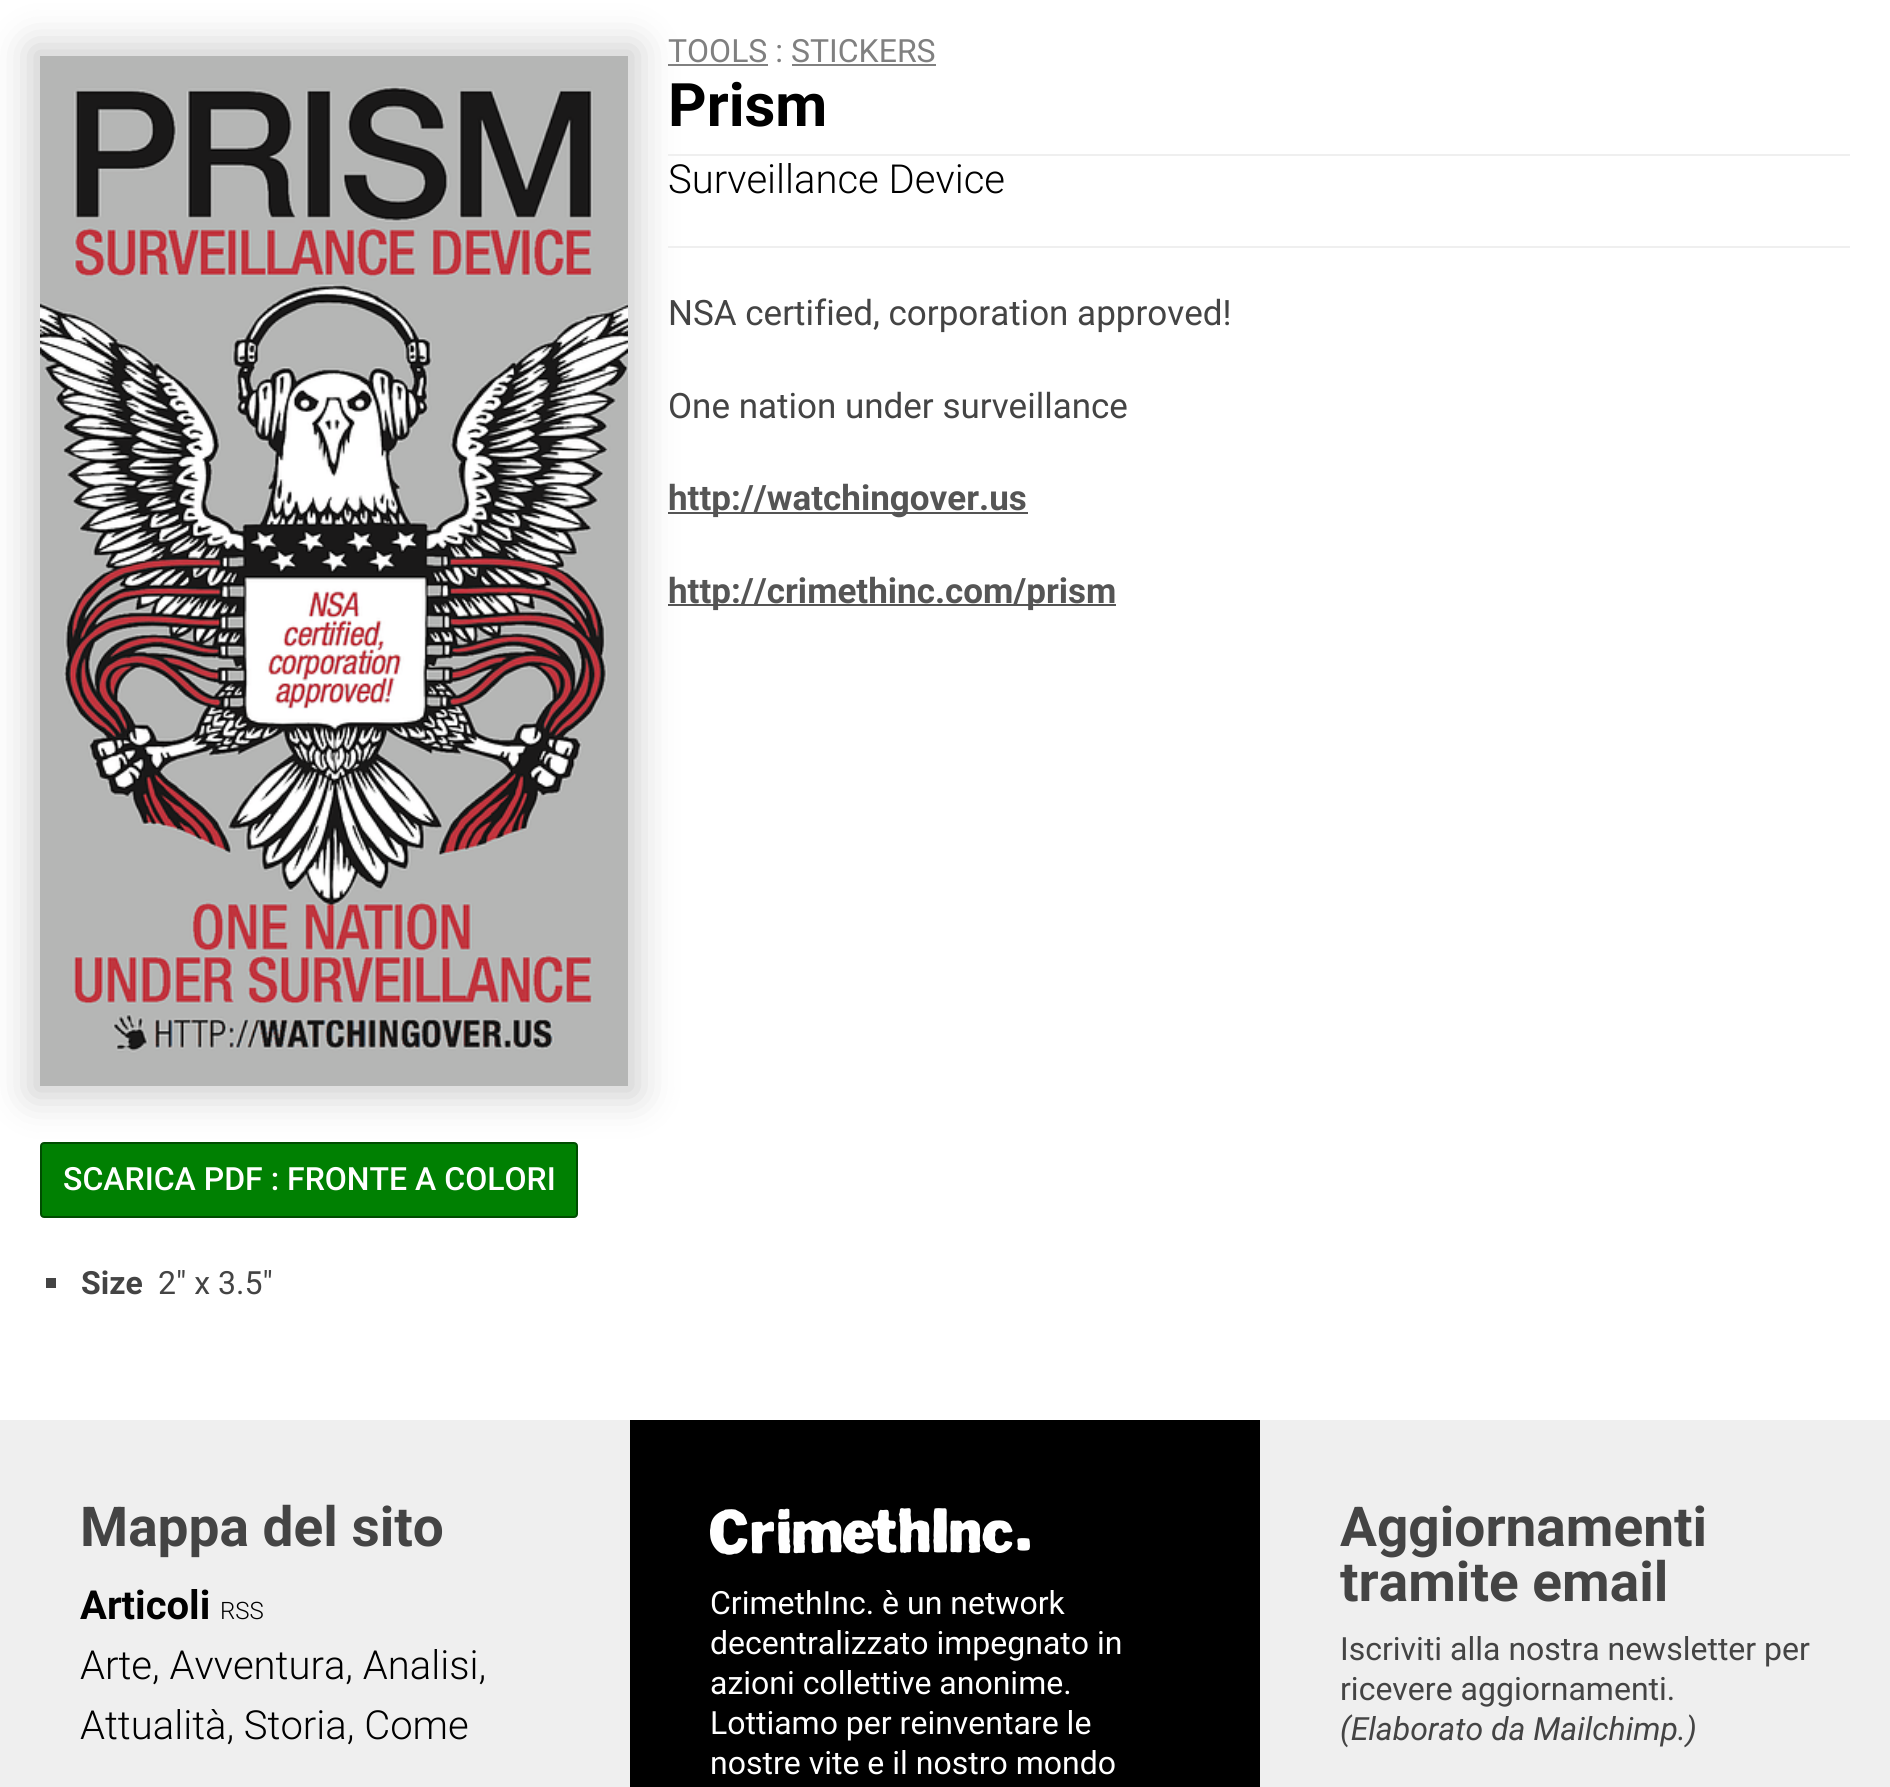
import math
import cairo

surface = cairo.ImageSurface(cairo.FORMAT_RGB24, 1890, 1787)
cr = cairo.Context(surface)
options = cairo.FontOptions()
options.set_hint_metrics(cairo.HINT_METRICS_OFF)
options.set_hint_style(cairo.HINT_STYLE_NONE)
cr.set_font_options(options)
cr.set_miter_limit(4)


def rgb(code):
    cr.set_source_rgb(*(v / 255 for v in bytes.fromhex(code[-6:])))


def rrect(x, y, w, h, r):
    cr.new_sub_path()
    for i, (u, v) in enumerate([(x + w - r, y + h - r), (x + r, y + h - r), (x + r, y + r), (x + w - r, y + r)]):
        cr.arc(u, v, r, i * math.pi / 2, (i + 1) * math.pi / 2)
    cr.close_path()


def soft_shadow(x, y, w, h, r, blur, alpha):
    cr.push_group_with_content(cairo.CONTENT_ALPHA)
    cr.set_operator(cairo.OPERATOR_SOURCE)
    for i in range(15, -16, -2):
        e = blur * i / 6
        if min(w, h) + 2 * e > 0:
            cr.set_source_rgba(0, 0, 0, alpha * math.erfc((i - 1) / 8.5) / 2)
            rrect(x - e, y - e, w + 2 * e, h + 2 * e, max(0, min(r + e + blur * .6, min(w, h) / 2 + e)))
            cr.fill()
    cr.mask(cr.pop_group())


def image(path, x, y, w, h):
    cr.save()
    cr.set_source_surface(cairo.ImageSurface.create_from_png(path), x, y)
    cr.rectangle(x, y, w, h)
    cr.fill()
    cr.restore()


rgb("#ffffff")
cr.paint()
rgb("#000000")
soft_shadow(30, 46, 608, 1050, 0, 20, 0.2)
for x, y, w, h, color in [
    (668, 64, 100, 2, "#808080"),
    (792, 64, 144, 2, "#808080"),
    (668, 154, 1182, 2, "#efefef"),
    (668, 246, 1182, 2, "#efefef"),
    (668, 512, 360, 2, "#555555"),
    (668, 604, 448, 2, "#555555"),
]:
    rgb(color)
    cr.rectangle(x, y, w, h)
    cr.fill()
image("img/1.png", 40, 56, 588, 1030)
rgb("#008002")
rrect(41, 1143, 536, 74, 3)
cr.fill_preserve()
rgb("#004d01")
cr.stroke()
for x, y, w, h, color in [
    (46, 1278, 10, 10, "#444444"),
    (0, 1420, 1890, 367, "#efefef"),
    (630, 1420, 630, 367, "#000000"),
]:
    rgb(color)
    cr.rectangle(x, y, w, h)
    cr.fill()
image("img/2.png", 710, 1508, 320, 47)
cr.select_font_face("Roboto")
cr.set_font_size(32)
rgb("#808080")
cr.move_to(668, 62)
cr.show_text("TOOLS : STICKERS")
cr.select_font_face("Roboto", cairo.FONT_SLANT_NORMAL, cairo.FONT_WEIGHT_BOLD)
cr.set_font_size(60)
rgb("#000000")
cr.move_to(668, 126)
cr.show_text("Prism")
cr.select_font_face("Roboto Light")
cr.set_font_size(40)
cr.move_to(668, 193)
cr.show_text("Surveillance Device")
cr.select_font_face("Roboto")
cr.set_font_size(35)
rgb("#444444")
cr.move_to(668, 325)
cr.show_text("NSA certified, corporation approved!")
cr.move_to(668, 418)
cr.show_text("One nation under surveillance")
cr.select_font_face("Roboto", cairo.FONT_SLANT_NORMAL, cairo.FONT_WEIGHT_BOLD)
rgb("#555555")
cr.move_to(668, 510)
cr.show_text("http://watchingover.us")
cr.move_to(668, 603)
cr.show_text("http://crimethinc.com/prism")
cr.select_font_face("Roboto Medium")
cr.set_font_size(32)
rgb("#ffffff")
cr.move_to(63, 1190)
cr.show_text("SCARICA PDF : FRONTE A COLORI")
cr.select_font_face("Roboto", cairo.FONT_SLANT_NORMAL, cairo.FONT_WEIGHT_BOLD)
rgb("#444444")
cr.move_to(81, 1294)
cr.show_text("Size")
cr.select_font_face("Roboto")
cr.move_to(158, 1294)
cr.show_text("2\" x 3.5\"")
cr.select_font_face("Roboto", cairo.FONT_SLANT_NORMAL, cairo.FONT_WEIGHT_BOLD)
cr.set_font_size(55)
cr.move_to(80, 1546)
cr.show_text("Mappa del sito")
cr.set_font_size(40)
rgb("#000000")
cr.move_to(80, 1619)
cr.show_text("Articoli")
cr.select_font_face("Roboto Light")
cr.set_font_size(24)
cr.move_to(220, 1619)
cr.show_text("RSS")
cr.set_font_size(40)
cr.move_to(80, 1679)
cr.show_text("Arte, Avventura, Analisi,")
cr.move_to(80, 1739)
cr.show_text("Attualità, Storia, Come")
cr.select_font_face("Roboto")
cr.set_font_size(32)
rgb("#ffffff")
for x, y, s in [
    (710, 1614, "CrimethInc. è un network"),
    (710, 1654, "decentralizzato impegnato in"),
    (710, 1694, "azioni collettive anonime."),
    (710, 1734, "Lottiamo per reinventare le"),
    (710, 1774, "nostre vite e il nostro mondo"),
]:
    cr.move_to(x, y)
    cr.show_text(s)
cr.select_font_face("Roboto", cairo.FONT_SLANT_NORMAL, cairo.FONT_WEIGHT_BOLD)
cr.set_font_size(55)
rgb("#444444")
cr.move_to(1340, 1546)
cr.show_text("Aggiornamenti")
cr.move_to(1340, 1601)
cr.show_text("tramite email")
cr.select_font_face("Roboto")
cr.set_font_size(32)
cr.move_to(1340, 1660)
cr.show_text("Iscriviti alla nostra newsletter per")
cr.move_to(1340, 1700)
cr.show_text("ricevere aggiornamenti.")
cr.select_font_face("Roboto", cairo.FONT_SLANT_ITALIC)
cr.move_to(1340, 1740)
cr.show_text("(Elaborato da Mailchimp.)")
surface.write_to_png("page.png")
